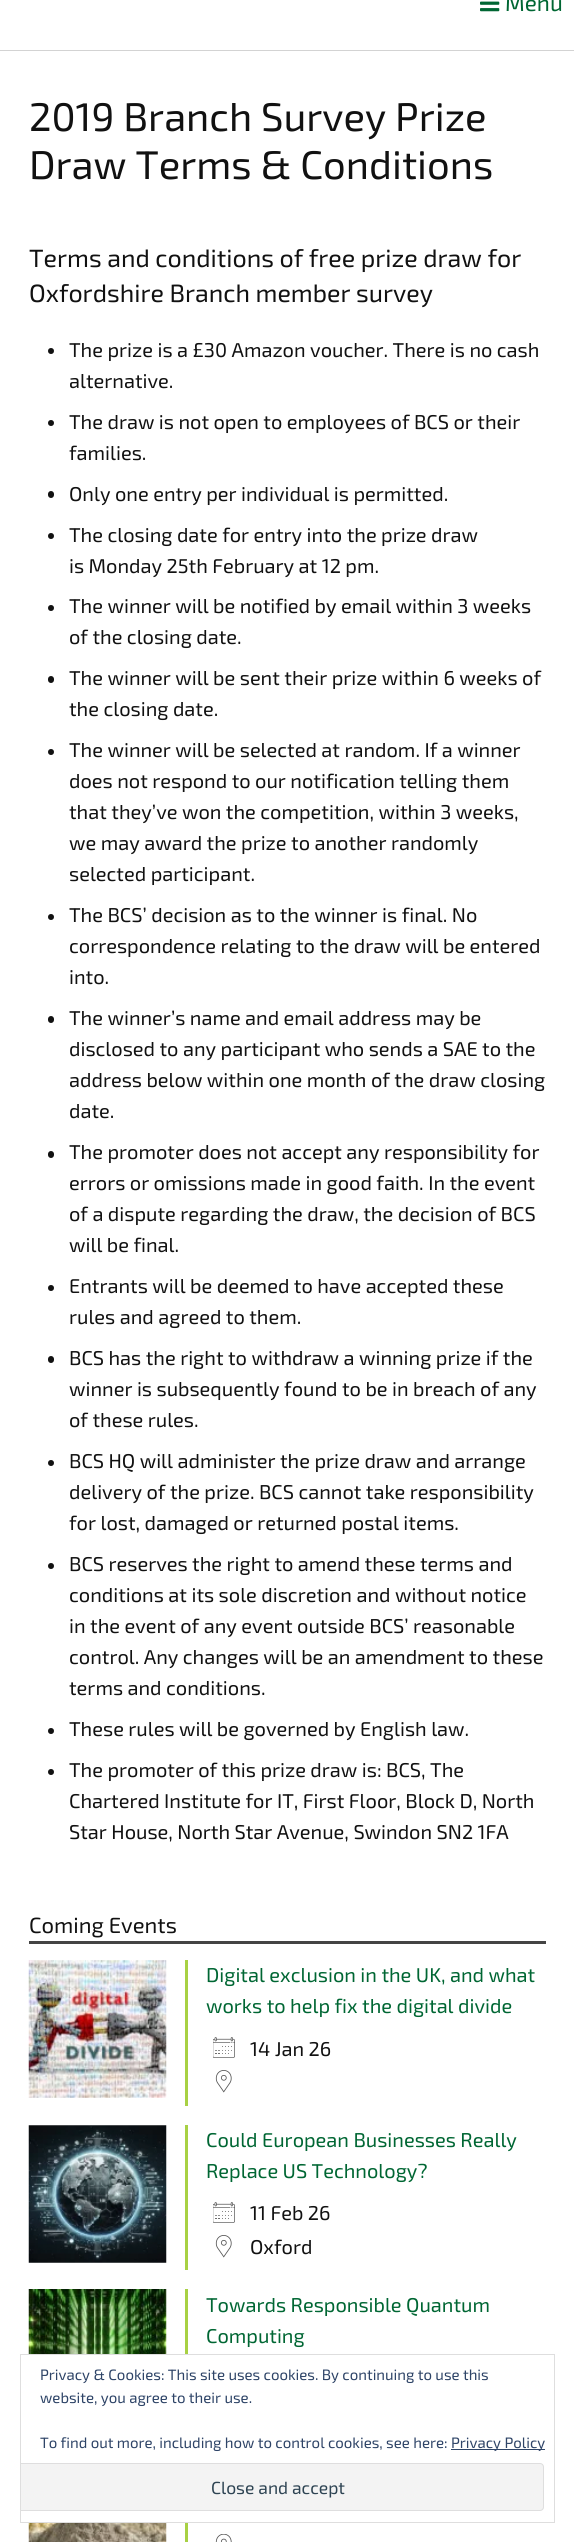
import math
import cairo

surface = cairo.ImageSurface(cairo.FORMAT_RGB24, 574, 2542)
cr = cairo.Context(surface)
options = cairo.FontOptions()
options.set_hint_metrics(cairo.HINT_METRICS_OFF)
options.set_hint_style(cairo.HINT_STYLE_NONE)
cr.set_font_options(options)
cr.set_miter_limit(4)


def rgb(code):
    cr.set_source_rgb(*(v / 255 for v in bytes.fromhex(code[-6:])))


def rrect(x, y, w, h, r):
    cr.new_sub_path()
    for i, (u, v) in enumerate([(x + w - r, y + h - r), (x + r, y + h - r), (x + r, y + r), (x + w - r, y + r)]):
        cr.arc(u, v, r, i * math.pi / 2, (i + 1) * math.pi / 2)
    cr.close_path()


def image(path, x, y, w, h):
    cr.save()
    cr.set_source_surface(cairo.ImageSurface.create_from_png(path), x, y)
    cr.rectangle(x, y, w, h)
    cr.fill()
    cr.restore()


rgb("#ffffff")
cr.paint()
rgb("#d3d3d3")
cr.rectangle(0, 50, 574, 1)
cr.fill()
image("img/1.png", 480, 1, 20, 11)
rgb("#111111")
cr.arc(51, 351, 3, 0, 2 * math.pi)
cr.fill()
cr.arc(51, 423, 3, 0, 2 * math.pi)
cr.fill()
rrect(48, 491, 6, 7, 3)
cr.fill()
cr.arc(51, 536, 3, 0, 2 * math.pi)
cr.fill()
cr.arc(51, 608, 3, 0, 2 * math.pi)
cr.fill()
rrect(48, 676, 6, 7, 3)
cr.fill()
cr.arc(51, 752, 3, 0, 2 * math.pi)
cr.fill()
cr.arc(51, 917, 3, 0, 2 * math.pi)
cr.fill()
rrect(48, 1016, 6, 7, 3)
cr.fill()
rrect(48, 1151, 6, 7, 3)
cr.fill()
cr.arc(51, 1288, 3, 0, 2 * math.pi)
cr.fill()
rrect(48, 1356, 6, 7, 3)
cr.fill()
cr.arc(51, 1463, 3, 0, 2 * math.pi)
cr.fill()
cr.arc(51, 1566, 3, 0, 2 * math.pi)
cr.fill()
cr.arc(51, 1731, 3, 0, 2 * math.pi)
cr.fill()
cr.arc(51, 1772, 3, 0, 2 * math.pi)
cr.fill()
rgb("#444444")
cr.rectangle(29, 1941, 517, 3)
cr.fill()
image("img/2.png", 28, 1960, 139, 138)
rgb("#a8d144")
cr.rectangle(185, 1960, 3, 146)
cr.fill()
image("img/3.png", 213, 2037, 22, 21)
image("img/4.png", 215, 2070, 17, 23)
image("img/5.png", 28, 2125, 139, 138)
cr.rectangle(185, 2125, 3, 145)
cr.fill()
image("img/3.png", 213, 2202, 22, 21)
image("img/4.png", 215, 2235, 17, 23)
image("img/6.png", 28, 2289, 139, 65)
cr.rectangle(185, 2289, 3, 65)
cr.fill()
image("img/7.png", 28, 2523, 139, 19)
cr.rectangle(185, 2523, 3, 19)
cr.fill()
image("img/8.png", 215, 2534, 17, 8)
cr.rectangle(20.5, 2354.5, 534, 168)
rgb("#dedede")
cr.set_line_width(1)
cr.stroke()
rgb("#2e4467")
cr.rectangle(451, 2449, 94, 1)
cr.fill()
rgb("#f3f3f3")
cr.new_path()
cr.move_to(21, 2463)
cr.line_to(540, 2463)
cr.curve_to(542, 2463, 544, 2465, 544, 2467)
cr.line_to(544, 2507)
cr.curve_to(544, 2509, 542, 2511, 540, 2511)
cr.line_to(21, 2511)
cr.close_path()
cr.fill()
cr.save()
cr.rectangle(21, 2355, 533, 166)
cr.clip()
rrect(11.5, 2463.5, 532, 47, 3.5)
rgb("#dedede")
cr.stroke()
cr.restore()
cr.select_font_face("Exo 2")
cr.set_font_size(22.5)
rgb("#006633")
cr.move_to(505, 11)
cr.show_text("Menu")
cr.set_font_size(40)
rgb("#111111")
cr.move_to(29, 131)
cr.show_text("2019 Branch Survey Prize")
cr.move_to(29, 179)
cr.show_text("Draw Terms & Conditions")
cr.set_font_size(25)
cr.move_to(29, 267)
cr.show_text("Terms and conditions of free prize draw for")
cr.move_to(29, 302)
cr.show_text("Oxfordshire Branch member survey")
cr.set_font_size(20)
for x, y, s in [
    (69, 357, "The prize is a £30 Amazon voucher. There is no cash"),
    (69, 388, "alternative."),
    (69, 429, "The draw is not open to employees of BCS or their"),
    (69, 460, "families."),
    (69, 501, "Only one entry per individual is permitted."),
    (69, 542, "The closing date for entry into the prize draw"),
    (69, 573, "is Monday 25th February at 12 pm."),
    (69, 613, "The winner will be notified by email within 3 weeks"),
    (69, 644, "of the closing date."),
    (69, 685, "The winner will be sent their prize within 6 weeks of"),
    (69, 716, "the closing date."),
    (69, 757, "The winner will be selected at random. If a winner"),
    (69, 788, "does not respond to our notification telling them"),
    (69, 819, "that they’ve won the competition, within 3 weeks,"),
    (69, 850, "we may award the prize to another randomly"),
    (69, 881, "selected participant."),
    (69, 922, "The BCS’ decision as to the winner is final. No"),
    (69, 953, "correspondence relating to the draw will be entered"),
    (69, 984, "into."),
    (69, 1025, "The winner’s name and email address may be"),
    (69, 1056, "disclosed to any participant who sends a SAE to the"),
    (69, 1087, "address below within one month of the draw closing"),
    (69, 1118, "date."),
    (69, 1159, "The promoter does not accept any responsibility for"),
    (69, 1190, "errors or omissions made in good faith. In the event"),
    (69, 1221, "of a dispute regarding the draw, the decision of BCS"),
    (69, 1252, "will be final."),
    (69, 1293, "Entrants will be deemed to have accepted these"),
    (69, 1324, "rules and agreed to them."),
    (69, 1365, "BCS has the right to withdraw a winning prize if the"),
    (69, 1396, "winner is subsequently found to be in breach of any"),
    (69, 1427, "of these rules."),
    (69, 1468, "BCS HQ will administer the prize draw and arrange"),
    (69, 1499, "delivery of the prize. BCS cannot take responsibility"),
    (69, 1530, "for lost, damaged or returned postal items."),
    (69, 1571, "BCS reserves the right to amend these terms and"),
    (69, 1602, "conditions at its sole discretion and without notice"),
    (69, 1633, "in the event of any event outside BCS’ reasonable"),
    (69, 1664, "control. Any changes will be an amendment to these"),
    (69, 1695, "terms and conditions."),
    (69, 1736, "These rules will be governed by English law."),
    (69, 1777, "The promoter of this prize draw is: BCS, The"),
    (69, 1808, "Chartered Institute for IT, First Floor, Block D, North"),
    (69, 1839, "Star House, North Star Avenue, Swindon SN2 1FA"),
]:
    cr.move_to(x, y)
    cr.show_text(s)
cr.set_font_size(22)
cr.move_to(29, 1933)
cr.show_text("Coming Events")
cr.set_font_size(20)
rgb("#006633")
cr.move_to(206, 1982)
cr.show_text("Digital exclusion in the UK, and what")
cr.move_to(206, 2013)
cr.show_text("works to help fix the digital divide")
rgb("#111111")
cr.move_to(250, 2056)
cr.show_text("14 Jan 26")
rgb("#006633")
cr.move_to(206, 2147)
cr.show_text("Could European Businesses Really")
cr.move_to(206, 2178)
cr.show_text("Replace US Technology?")
rgb("#111111")
cr.move_to(250, 2220)
cr.show_text("11 Feb 26")
cr.move_to(250, 2254)
cr.show_text("Oxford")
rgb("#006633")
cr.move_to(206, 2312)
cr.show_text("Towards Responsible Quantum")
cr.move_to(206, 2343)
cr.show_text("Computing")
cr.set_font_size(15)
rgb("#2e4467")
for x, y, s in [
    (40, 2380, "Privacy & Cookies: This site uses cookies. By continuing to use this"),
    (40, 2403, "website, you agree to their use."),
    (40, 2448, "To find out more, including how to control cookies, see here:"),
    (451, 2448, "Privacy Policy"),
]:
    cr.move_to(x, y)
    cr.show_text(s)
cr.set_font_size(17.5)
rgb("#2e4453")
cr.move_to(211, 2494)
cr.show_text("Close and accept")
surface.write_to_png("page.png")
